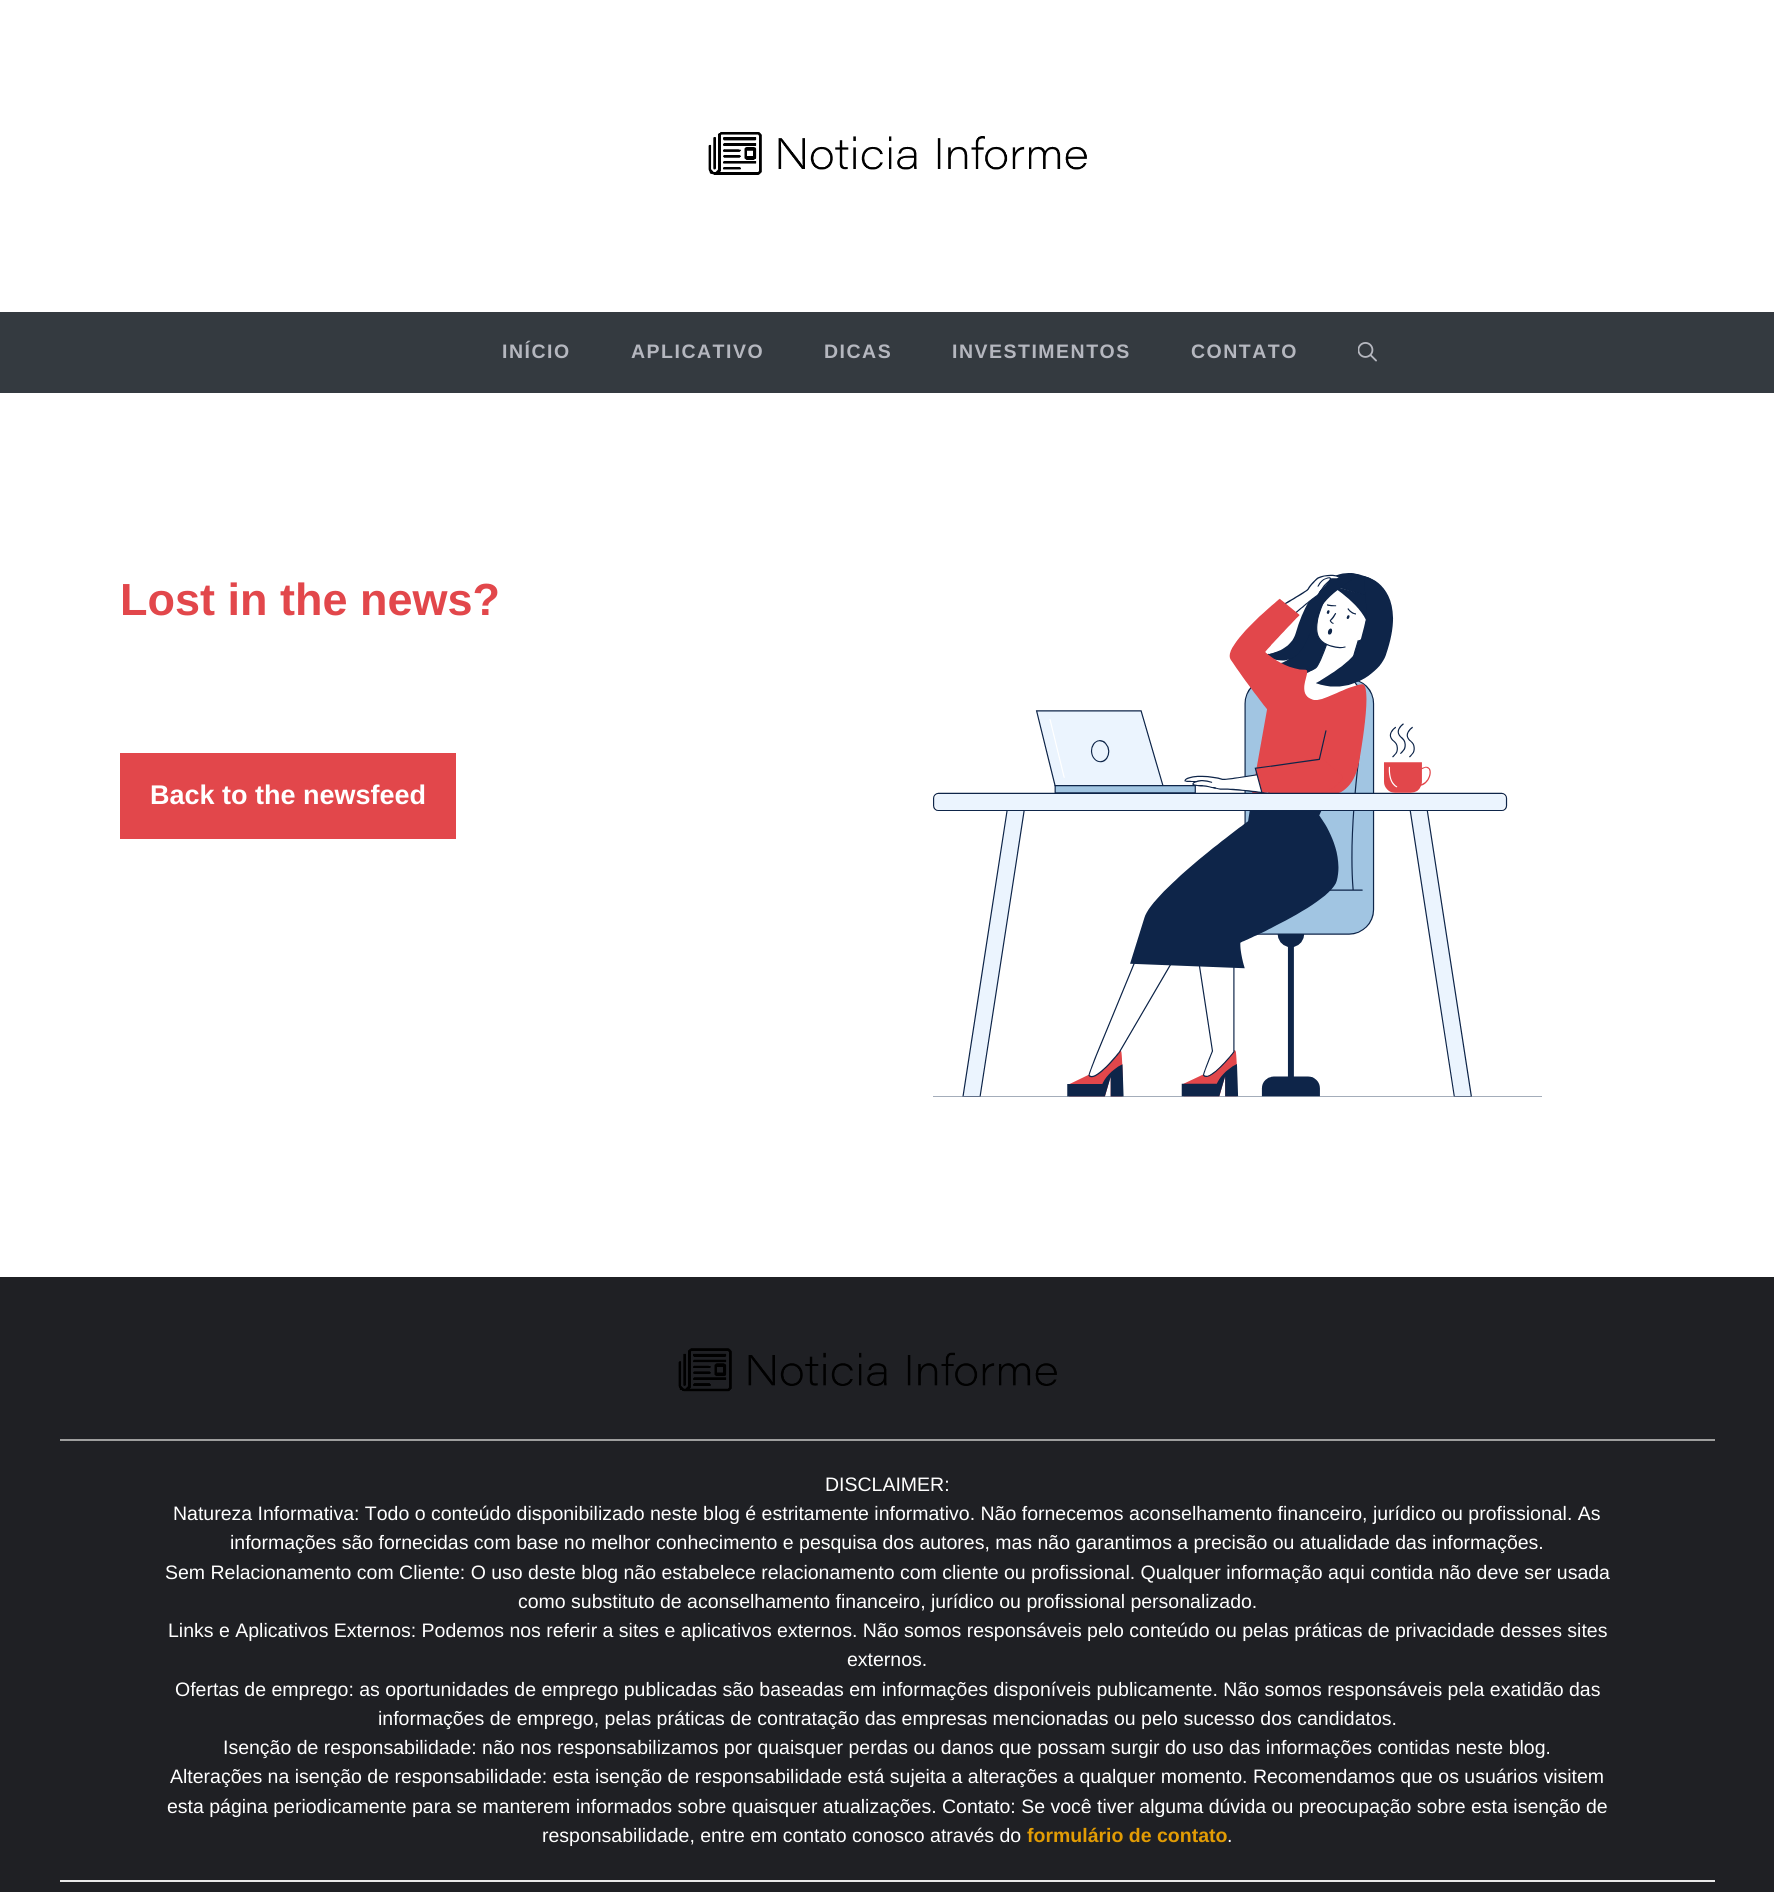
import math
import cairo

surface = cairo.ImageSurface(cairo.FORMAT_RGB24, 1774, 1892)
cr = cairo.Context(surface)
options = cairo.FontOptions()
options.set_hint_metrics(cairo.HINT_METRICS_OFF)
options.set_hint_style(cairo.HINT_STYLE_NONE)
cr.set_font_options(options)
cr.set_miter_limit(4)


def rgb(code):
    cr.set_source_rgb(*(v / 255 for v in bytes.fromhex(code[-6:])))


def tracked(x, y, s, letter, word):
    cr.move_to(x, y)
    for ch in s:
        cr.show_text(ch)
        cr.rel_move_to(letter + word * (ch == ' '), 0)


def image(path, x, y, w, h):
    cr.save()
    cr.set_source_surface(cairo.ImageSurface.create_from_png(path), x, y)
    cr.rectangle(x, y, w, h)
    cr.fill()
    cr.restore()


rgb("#ffffff")
cr.paint()
image("img/1.png", 708, 132, 379, 43)
rgb("#343a40")
cr.rectangle(0, 312, 1774, 81)
cr.fill()
image("img/2.png", 1358, 342, 19, 20)
rgb("#e2474b")
cr.rectangle(120, 753, 336, 86)
cr.fill()
image("img/3.png", 933, 573, 609, 524)
rgb("#1f2024")
cr.rectangle(0, 1277, 1774, 615)
cr.fill()
rgb("#9e9e9e")
cr.rectangle(60, 1439, 1655, 2)
cr.fill()
image("img/4.png", 678, 1348, 379, 44)
rgb("#e9e9e9")
cr.rectangle(60, 1880, 1655, 2)
cr.fill()
cr.select_font_face("Liberation Sans", cairo.FONT_SLANT_NORMAL, cairo.FONT_WEIGHT_BOLD)
cr.set_font_size(19.5)
rgb("#b5b7bf")
for x, y, s in [
    (502, 358, "INÍCIO"),
    (631, 358, "APLICATIVO"),
    (824, 358, "DICAS"),
    (952, 358, "INVESTIMENTOS"),
    (1191, 358, "CONTATO"),
]:
    tracked(x, y, s, 1.5, 0)
cr.set_font_size(45)
rgb("#e2474b")
cr.move_to(120, 615)
cr.show_text("Lost in the news?")
cr.set_font_size(27)
rgb("#ffffff")
cr.move_to(150, 804)
cr.show_text("Back to the newsfeed")
cr.select_font_face("Liberation Sans")
cr.set_font_size(19.5)
for x, y, s in [
    (825, 1491, "DISCLAIMER:"),
    (173, 1520, "Natureza Informativa: Todo o conteúdo disponibilizado neste blog é estritamente informativo. Não fornecemos aconselhamento financeiro, jurídico ou profissional. As"),
    (230, 1549, "informações são fornecidas com base no melhor conhecimento e pesquisa dos autores, mas não garantimos a precisão ou atualidade das informações."),
    (165, 1579, "Sem Relacionamento com Cliente: O uso deste blog não estabelece relacionamento com cliente ou profissional. Qualquer informação aqui contida não deve ser usada"),
    (518, 1608, "como substituto de aconselhamento financeiro, jurídico ou profissional personalizado."),
    (168, 1637, "Links e Aplicativos Externos: Podemos nos referir a sites e aplicativos externos. Não somos responsáveis pelo conteúdo ou pelas práticas de privacidade desses sites"),
    (847, 1666, "externos."),
    (175, 1696, "Ofertas de emprego: as oportunidades de emprego publicadas são baseadas em informações disponíveis publicamente. Não somos responsáveis pela exatidão das"),
    (378, 1725, "informações de emprego, pelas práticas de contratação das empresas mencionadas ou pelo sucesso dos candidatos."),
    (223, 1754, "Isenção de responsabilidade: não nos responsabilizamos por quaisquer perdas ou danos que possam surgir do uso das informações contidas neste blog."),
    (170, 1783, "Alterações na isenção de responsabilidade: esta isenção de responsabilidade está sujeita a alterações a qualquer momento. Recomendamos que os usuários visitem"),
    (167, 1813, "esta página periodicamente para se manterem informados sobre quaisquer atualizações. Contato: Se você tiver alguma dúvida ou preocupação sobre esta isenção de"),
    (542, 1842, "responsabilidade, entre em contato conosco através do"),
]:
    cr.move_to(x, y)
    cr.show_text(s)
cr.select_font_face("Liberation Sans", cairo.FONT_SLANT_NORMAL, cairo.FONT_WEIGHT_BOLD)
rgb("#e29c04")
cr.move_to(1027, 1842)
cr.show_text("formulário de contato")
cr.select_font_face("Liberation Sans")
rgb("#ffffff")
cr.move_to(1227, 1842)
cr.show_text(".")
surface.write_to_png("page.png")
